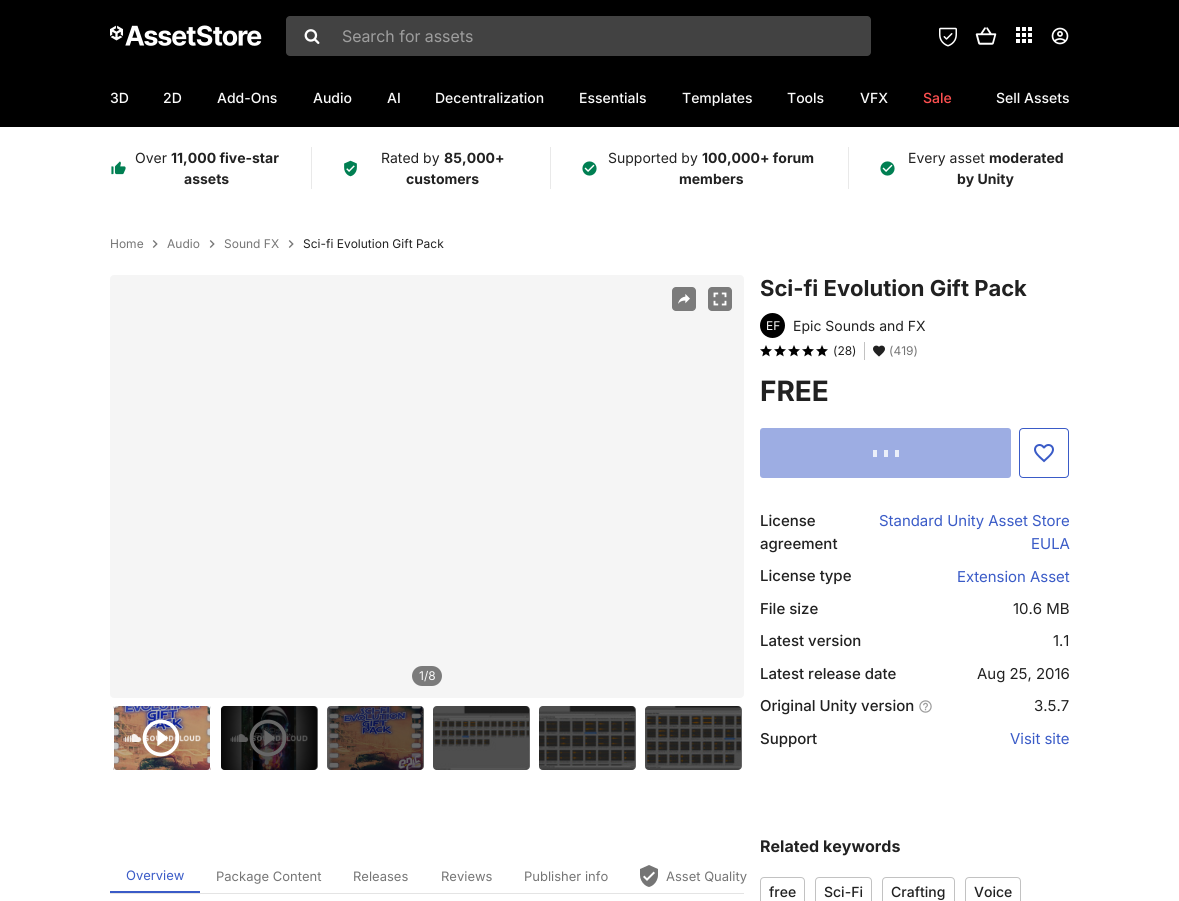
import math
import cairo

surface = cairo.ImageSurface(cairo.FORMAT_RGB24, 1179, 901)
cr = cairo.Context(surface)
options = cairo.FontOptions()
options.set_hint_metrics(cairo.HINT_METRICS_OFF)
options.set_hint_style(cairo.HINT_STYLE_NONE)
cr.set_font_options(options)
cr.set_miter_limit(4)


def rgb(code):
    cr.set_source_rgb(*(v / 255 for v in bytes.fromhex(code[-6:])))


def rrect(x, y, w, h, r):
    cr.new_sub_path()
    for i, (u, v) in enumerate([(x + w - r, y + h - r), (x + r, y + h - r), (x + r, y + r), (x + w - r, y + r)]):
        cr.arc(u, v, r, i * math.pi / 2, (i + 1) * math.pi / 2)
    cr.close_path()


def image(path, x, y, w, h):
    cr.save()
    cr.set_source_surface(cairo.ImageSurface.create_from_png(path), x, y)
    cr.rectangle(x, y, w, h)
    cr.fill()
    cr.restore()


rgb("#ffffff")
cr.paint()
rgb("#000000")
cr.rectangle(0, 0, 1179, 127)
cr.fill()
image("img/1.png", 110, 25, 152, 21)
rgb("#424242")
rrect(286, 16, 585, 40, 4)
cr.fill()
image("img/2.png", 304, 29, 16, 15)
image("img/3.png", 939, 27, 18, 20)
image("img/4.png", 975, 27, 22, 18)
image("img/5.png", 1016, 27, 16, 16)
image("img/6.png", 1051, 27, 18, 18)
image("img/7.png", 111, 161, 15, 14)
rgb("#e9e9e9")
cr.rectangle(550, 147, 1, 42)
cr.fill()
cr.rectangle(311, 147, 1, 42)
cr.fill()
image("img/8.png", 344, 160, 13, 17)
cr.rectangle(848, 147, 1, 42)
cr.fill()
image("img/9.png", 582, 161, 15, 15)
image("img/9.png", 880, 161, 15, 15)
image("img/10.png", 152, 240, 6, 8)
image("img/10.png", 209, 240, 6, 8)
image("img/10.png", 288, 240, 6, 8)
rgb("#f5f5f5")
rrect(110, 275, 634, 423, 4)
cr.fill()
rgb("#7b7b7b")
rrect(672, 287, 24, 24, 4)
cr.fill()
image("img/11.png", 678, 294, 12, 10)
rrect(708, 287, 24, 24, 4)
cr.fill()
image("img/12.png", 713, 292, 14, 14)
rrect(412, 666, 30, 20, 10)
cr.fill()
image("img/13.png", 113, 706, 98, 64)
rrect(113.5, 705.5, 97, 65, 3.5)
rgb("#ffffff")
cr.set_line_width(1)
cr.stroke()
image("img/14.png", 142, 719, 38, 38)
image("img/15.png", 221, 706, 96, 64)
image("img/16.png", 249, 719, 38, 38)
cr.set_source_rgba(0, 0, 0, 0.6)
rrect(221, 706, 97, 64, 4)
cr.fill()
image("img/17.png", 327, 706, 96, 64)
rrect(327, 706, 97, 64, 4)
cr.fill()
image("img/18.png", 433, 706, 96, 64)
rrect(433, 706, 97, 64, 4)
cr.fill()
image("img/19.png", 539, 706, 96, 64)
rrect(539, 706, 97, 64, 4)
cr.fill()
image("img/20.png", 645, 706, 96, 64)
rrect(645, 706, 97, 64, 4)
cr.fill()
rgb("#e4e4e4")
cr.rectangle(110, 893, 634, 1)
cr.fill()
rgb("#3a5bc7")
cr.rectangle(110, 891, 90, 2)
cr.fill()
image("img/21.png", 640, 865, 18, 22)
rgb("#000000")
cr.arc(772.5, 325.5, 12.5, 0, 2 * math.pi)
cr.fill()
image("img/22.png", 760, 345, 12, 12)
image("img/22.png", 774, 345, 12, 12)
image("img/22.png", 788, 345, 12, 12)
image("img/22.png", 802, 345, 12, 12)
image("img/22.png", 816, 345, 12, 12)
rgb("#c2c2c2")
cr.rectangle(864, 342, 1, 18)
cr.fill()
image("img/23.png", 873, 345, 12, 12)
rgb("#9dade3")
rrect(760, 428, 251, 50, 3)
cr.fill()
for x, y, w, h, color in [
    (873, 450, 4, 7, "#ebeff9"),
    (884, 450, 4, 7, "#ebeff9"),
    (895, 450, 4, 7, "#ebeff9"),
]:
    rgb(color)
    cr.rectangle(x, y, w, h)
    cr.fill()
rrect(1019.5, 428.5, 49, 49, 3.5)
rgb("#3a5bc7")
cr.stroke()
image("img/24.png", 1034, 444, 20, 19)
image("img/25.png", 919, 700, 13, 13)
rrect(760.5, 877.5, 44, 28, 3.5)
rgb("#c2c2c2")
cr.stroke()
rrect(815.5, 877.5, 56, 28, 3.5)
cr.stroke()
rrect(882.5, 877.5, 72, 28, 3.5)
cr.stroke()
rrect(965.5, 877.5, 55, 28, 3.5)
cr.stroke()
cr.select_font_face("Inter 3")
cr.set_font_size(16)
rgb("#9e9e9e")
cr.move_to(342, 42)
cr.show_text("Search for assets")
cr.select_font_face("Inter Medium")
cr.set_font_size(14)
rgb("#fafafa")
for x, y, s in [
    (110, 103, "3D"),
    (163, 103, "2D"),
    (217, 103, "Add-Ons"),
    (313, 103, "Audio"),
    (387, 103, "AI"),
    (435, 103, "Decentralization"),
    (579, 103, "Essentials"),
    (682, 103, "Templates"),
    (787, 103, "Tools"),
    (860, 103, "VFX"),
]:
    cr.move_to(x, y)
    cr.show_text(s)
rgb("#ff5050")
cr.move_to(923, 103)
cr.show_text("Sale")
rgb("#fafafa")
cr.move_to(996, 103)
cr.show_text("Sell Assets")
cr.select_font_face("Inter")
rgb("#212121")
cr.move_to(135, 163)
cr.show_text("Over")
cr.select_font_face("Inter", cairo.FONT_SLANT_NORMAL, cairo.FONT_WEIGHT_BOLD)
cr.move_to(171, 163)
cr.show_text("11,000 five-star")
cr.move_to(184, 184)
cr.show_text("assets")
cr.select_font_face("Inter")
cr.move_to(381, 163)
cr.show_text("Rated by")
cr.select_font_face("Inter", cairo.FONT_SLANT_NORMAL, cairo.FONT_WEIGHT_BOLD)
cr.move_to(444, 163)
cr.show_text("85,000+")
cr.move_to(406, 184)
cr.show_text("customers")
cr.select_font_face("Inter")
cr.move_to(608, 163)
cr.show_text("Supported by")
cr.select_font_face("Inter", cairo.FONT_SLANT_NORMAL, cairo.FONT_WEIGHT_BOLD)
cr.move_to(702, 163)
cr.show_text("100,000+ forum")
cr.move_to(679, 184)
cr.show_text("members")
cr.select_font_face("Inter")
cr.move_to(908, 163)
cr.show_text("Every asset")
cr.select_font_face("Inter", cairo.FONT_SLANT_NORMAL, cairo.FONT_WEIGHT_BOLD)
cr.move_to(989, 163)
cr.show_text("moderated")
cr.move_to(957, 184)
cr.show_text("by Unity")
cr.select_font_face("Inter")
cr.set_font_size(12)
rgb("#757575")
for x, y, s in [
    (110, 248, "Home"),
    (167, 248, "Audio"),
    (224, 248, "Sound FX"),
]:
    cr.move_to(x, y)
    cr.show_text(s)
rgb("#212121")
cr.move_to(303, 248)
cr.show_text("Sci-fi Evolution Gift Pack")
rgb("#fafafa")
cr.move_to(419, 680)
cr.show_text("1/8")
cr.set_font_size(13)
rgb("#3a5bc7")
cr.move_to(126, 880)
cr.show_text("Overview")
rgb("#757575")
for x, y, s in [
    (216, 881, "Package Content"),
    (353, 881, "Releases"),
    (441, 881, "Reviews"),
    (524, 881, "Publisher info"),
    (666, 881, "Asset Quality"),
]:
    cr.move_to(x, y)
    cr.show_text(s)
cr.select_font_face("Inter", cairo.FONT_SLANT_NORMAL, cairo.FONT_WEIGHT_BOLD)
cr.set_font_size(22)
rgb("#212121")
cr.move_to(760, 296)
cr.show_text("Sci-fi Evolution Gift Pack")
cr.select_font_face("Inter")
cr.set_font_size(12)
rgb("#fafafa")
cr.move_to(766, 330)
cr.show_text("EF")
cr.set_font_size(14)
rgb("#212121")
cr.move_to(793, 331)
cr.show_text("Epic Sounds and FX")
cr.set_font_size(12)
cr.move_to(833, 355)
cr.show_text("(28)")
rgb("#757575")
cr.move_to(889, 355)
cr.show_text("(419)")
cr.select_font_face("Inter", cairo.FONT_SLANT_NORMAL, cairo.FONT_WEIGHT_BOLD)
cr.set_font_size(28)
rgb("#212121")
cr.move_to(760, 401)
cr.show_text("FREE")
cr.select_font_face("Inter Medium")
cr.set_font_size(15)
cr.move_to(760, 526)
cr.show_text("License")
cr.move_to(760, 549)
cr.show_text("agreement")
cr.select_font_face("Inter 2")
rgb("#3a5bc7")
cr.move_to(879, 526)
cr.show_text("Standard Unity Asset Store")
cr.move_to(1031, 549)
cr.show_text("EULA")
cr.select_font_face("Inter Medium")
rgb("#212121")
cr.move_to(760, 581)
cr.show_text("License type")
cr.select_font_face("Inter 2")
rgb("#3a5bc7")
cr.move_to(957, 582)
cr.show_text("Extension Asset")
cr.select_font_face("Inter Medium")
rgb("#212121")
cr.move_to(760, 614)
cr.show_text("File size")
cr.select_font_face("Inter 2")
cr.move_to(1013, 614)
cr.show_text("10.6 MB")
cr.select_font_face("Inter Medium")
cr.move_to(760, 646)
cr.show_text("Latest version")
cr.select_font_face("Inter 2")
cr.move_to(1053, 646)
cr.show_text("1.1")
cr.select_font_face("Inter Medium")
cr.move_to(760, 679)
cr.show_text("Latest release date")
cr.select_font_face("Inter 2")
cr.move_to(977, 679)
cr.show_text("Aug 25, 2016")
cr.select_font_face("Inter Medium")
cr.move_to(760, 711)
cr.show_text("Original Unity version")
cr.select_font_face("Inter 2")
cr.move_to(1034, 711)
cr.show_text("3.5.7")
cr.select_font_face("Inter Medium")
cr.move_to(760, 744)
cr.show_text("Support")
cr.select_font_face("Inter 2")
rgb("#3a5bc7")
cr.move_to(1010, 744)
cr.show_text("Visit site")
cr.select_font_face("Inter", cairo.FONT_SLANT_NORMAL, cairo.FONT_WEIGHT_BOLD)
cr.set_font_size(16)
rgb("#212121")
cr.move_to(760, 852)
cr.show_text("Related keywords")
cr.select_font_face("Inter Medium")
cr.set_font_size(14)
for x, y, s in [
    (769, 897, "free"),
    (824, 897, "Sci-Fi"),
    (891, 897, "Crafting"),
    (974, 897, "Voice"),
]:
    cr.move_to(x, y)
    cr.show_text(s)
surface.write_to_png("page.png")
